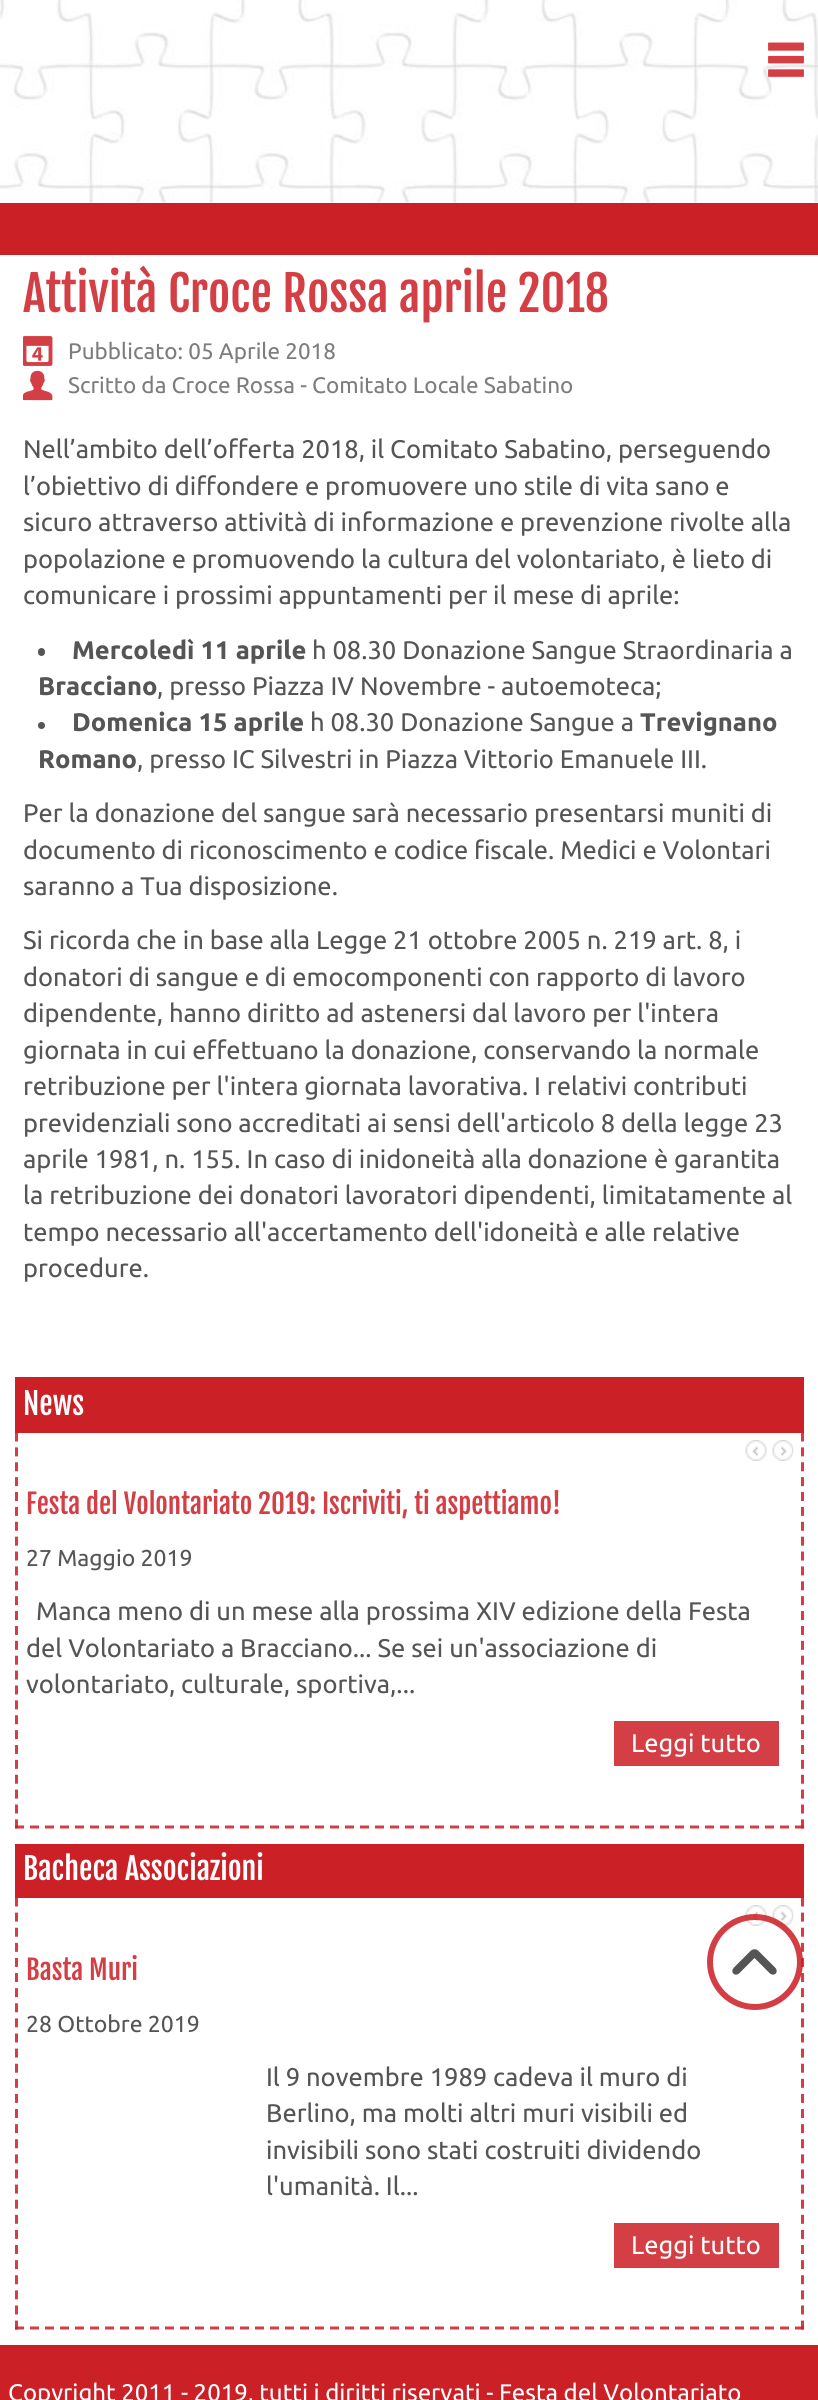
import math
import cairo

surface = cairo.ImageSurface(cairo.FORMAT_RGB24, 818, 2400)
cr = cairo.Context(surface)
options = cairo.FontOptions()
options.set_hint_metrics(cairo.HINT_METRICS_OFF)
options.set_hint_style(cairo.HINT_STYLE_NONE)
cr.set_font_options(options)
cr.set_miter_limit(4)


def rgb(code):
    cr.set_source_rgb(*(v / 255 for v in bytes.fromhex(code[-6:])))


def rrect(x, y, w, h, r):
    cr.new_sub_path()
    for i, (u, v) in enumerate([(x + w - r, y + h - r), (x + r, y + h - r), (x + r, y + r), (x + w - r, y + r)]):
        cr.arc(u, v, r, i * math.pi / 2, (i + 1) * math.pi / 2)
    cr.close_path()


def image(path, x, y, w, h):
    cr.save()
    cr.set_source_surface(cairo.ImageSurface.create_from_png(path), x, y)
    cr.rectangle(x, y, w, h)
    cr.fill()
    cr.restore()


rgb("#ffffff")
cr.paint()
image("img/1.png", 0, 0, 818, 203)
image("img/2.png", 768, 42, 36, 35)
rgb("#cc2027")
cr.rectangle(0, 203, 818, 52)
cr.fill()
image("img/3.png", 23, 336, 30, 30)
image("img/4.png", 23, 370, 30, 31)
rgb("#555555")
rrect(38, 648, 7, 8, 3.5)
cr.fill()
cr.arc(41.5, 725.5, 3.5, 0, 2 * math.pi)
cr.fill()
rgb("#cc2027")
cr.rectangle(15, 1377, 789, 56)
cr.fill()
cr.new_path()
cr.move_to(802.5, 1432.5)
cr.line_to(802.5, 1828.5)
cr.set_source_rgba(0.8, 0.125, 0.153, 0.86)
cr.set_line_width(3)
cr.set_dash([9, 5.88])
cr.stroke()
cr.new_path()
cr.move_to(15, 1827)
cr.line_to(804, 1827)
cr.set_dash([9, 6])
cr.stroke()
cr.new_path()
cr.move_to(16.5, 1432.5)
cr.line_to(16.5, 1828.5)
cr.set_dash([9, 5.88])
cr.stroke()
image("img/5.png", 745, 1440, 22, 21)
image("img/6.png", 772, 1440, 22, 21)
rgb("#d33f45")
cr.rectangle(614, 1721, 165, 45)
cr.fill()
rgb("#cc2027")
cr.rectangle(15, 1844, 789, 54)
cr.fill()
cr.new_path()
cr.move_to(802.5, 1897.5)
cr.line_to(802.5, 2329.5)
cr.set_source_rgba(0.8, 0.125, 0.153, 0.86)
cr.set_dash([9, 6.11])
cr.stroke()
cr.new_path()
cr.move_to(15, 2328)
cr.line_to(804, 2328)
cr.set_dash([9, 6])
cr.stroke()
cr.new_path()
cr.move_to(16.5, 1897.5)
cr.line_to(16.5, 2329.5)
cr.set_dash([9, 6.11])
cr.stroke()
image("img/5.png", 745, 1905, 22, 21)
image("img/6.png", 772, 1905, 22, 21)
rgb("#d33f45")
cr.rectangle(614, 2223, 165, 45)
cr.fill()
cr.arc(755, 1962, 45, 0, 2 * math.pi)
cr.set_source_rgba(0.8, 0.125, 0.153, 0.86)
cr.set_line_width(6)
cr.set_dash([])
cr.stroke()
image("img/7.png", 732, 1949, 45, 26)
rgb("#cc2027")
cr.rectangle(0, 2345, 818, 55)
cr.fill()
cr.select_font_face("Fjalla One")
cr.set_font_size(48)
rgb("#d33f45")
cr.move_to(23, 312)
cr.show_text("Attività Croce Rossa aprile 2018")
cr.select_font_face("Ubuntu")
cr.set_font_size(22.5)
rgb("#7d7d7d")
cr.move_to(68, 359)
cr.show_text("Pubblicato: 05 Aprile 2018")
cr.move_to(68, 393)
cr.show_text("Scritto da Croce Rossa - Comitato Locale Sabatino")
cr.set_font_size(25.5)
rgb("#555555")
for x, y, s in [
    (23, 458, "Nell’ambito dell’offerta 2018, il Comitato Sabatino, perseguendo"),
    (23, 495, "l’obiettivo di diffondere e promuovere uno stile di vita sano e"),
    (23, 531, "sicuro attraverso attività di informazione e prevenzione rivolte alla"),
    (23, 568, "popolazione e promuovendo la cultura del volontariato, è lieto di"),
    (23, 604, "comunicare i prossimi appuntamenti per il mese di aprile:"),
]:
    cr.move_to(x, y)
    cr.show_text(s)
cr.select_font_face("Ubuntu", cairo.FONT_SLANT_NORMAL, cairo.FONT_WEIGHT_BOLD)
cr.move_to(72, 659)
cr.show_text("Mercoledì 11 aprile")
cr.select_font_face("Ubuntu")
cr.move_to(312, 659)
cr.show_text("h 08.30 Donazione Sangue Straordinaria a")
cr.select_font_face("Ubuntu", cairo.FONT_SLANT_NORMAL, cairo.FONT_WEIGHT_BOLD)
cr.move_to(38, 695)
cr.show_text("Bracciano")
cr.select_font_face("Ubuntu")
cr.move_to(157, 695)
cr.show_text(", presso Piazza IV Novembre - autoemoteca;")
cr.select_font_face("Ubuntu", cairo.FONT_SLANT_NORMAL, cairo.FONT_WEIGHT_BOLD)
cr.move_to(72, 731)
cr.show_text("Domenica 15 aprile")
cr.select_font_face("Ubuntu")
cr.move_to(310, 731)
cr.show_text("h 08.30 Donazione Sangue a")
cr.select_font_face("Ubuntu", cairo.FONT_SLANT_NORMAL, cairo.FONT_WEIGHT_BOLD)
cr.move_to(640, 731)
cr.show_text("Trevignano")
cr.move_to(38, 768)
cr.show_text("Romano")
cr.select_font_face("Ubuntu")
for x, y, s in [
    (137, 768, ", presso IC Silvestri in Piazza Vittorio Emanuele III."),
    (23, 822, "Per la donazione del sangue sarà necessario presentarsi muniti di"),
    (23, 859, "documento di riconoscimento e codice fiscale. Medici e Volontari"),
    (23, 895, "saranno a Tua disposizione."),
    (23, 949, "Si ricorda che in base alla Legge 21 ottobre 2005 n. 219 art. 8, i"),
    (23, 986, "donatori di sangue e di emocomponenti con rapporto di lavoro"),
    (23, 1022, "dipendente, hanno diritto ad astenersi dal lavoro per l'intera"),
    (23, 1059, "giornata in cui effettuano la donazione, conservando la normale"),
    (23, 1095, "retribuzione per l'intera giornata lavorativa. I relativi contributi"),
    (23, 1132, "previdenziali sono accreditati ai sensi dell'articolo 8 della legge 23"),
    (23, 1168, "aprile 1981, n. 155. In caso di inidoneità alla donazione è garantita"),
    (23, 1204, "la retribuzione dei donatori lavoratori dipendenti, limitatamente al"),
    (23, 1241, "tempo necessario all'accertamento dell'idoneità e alle relative"),
    (23, 1277, "procedure."),
]:
    cr.move_to(x, y)
    cr.show_text(s)
cr.select_font_face("Fjalla One")
cr.set_font_size(30)
rgb("#ffffff")
cr.move_to(23, 1415)
cr.show_text("News")
cr.set_font_size(27)
rgb("#d33f45")
cr.move_to(26, 1514)
cr.show_text("Festa del Volontariato 2019: Iscriviti, ti aspettiamo!")
cr.select_font_face("Ubuntu")
cr.set_font_size(23)
rgb("#555555")
cr.move_to(26, 1566)
cr.show_text("27 Maggio 2019")
cr.set_font_size(25.5)
for x, y, s in [
    (36, 1620, "Manca meno di un mese alla prossima XIV edizione della Festa"),
    (26, 1657, "del Volontariato a Bracciano... Se sei un'associazione di"),
    (26, 1693, "volontariato, culturale, sportiva,..."),
]:
    cr.move_to(x, y)
    cr.show_text(s)
rgb("#ffffff")
cr.move_to(631, 1752)
cr.show_text("Leggi tutto")
cr.select_font_face("Fjalla One")
cr.set_font_size(30)
cr.move_to(23, 1880)
cr.show_text("Bacheca Associazioni")
cr.set_font_size(27)
rgb("#d33f45")
cr.move_to(26, 1980)
cr.show_text("Basta Muri")
cr.select_font_face("Ubuntu")
cr.set_font_size(23)
rgb("#555555")
cr.move_to(26, 2032)
cr.show_text("28 Ottobre 2019")
cr.set_font_size(25.5)
for x, y, s in [
    (266, 2086, "Il 9 novembre 1989 cadeva il muro di"),
    (266, 2122, "Berlino, ma molti altri muri visibili ed"),
    (266, 2159, "invisibili sono stati costruiti dividendo"),
    (266, 2195, "l'umanità. Il..."),
]:
    cr.move_to(x, y)
    cr.show_text(s)
rgb("#ffffff")
cr.move_to(631, 2254)
cr.show_text("Leggi tutto")
cr.set_font_size(24)
cr.move_to(8, 2401)
cr.show_text("Copyright 2011 - 2019, tutti i diritti riservati - Festa del Volontariato")
surface.write_to_png("page.png")
